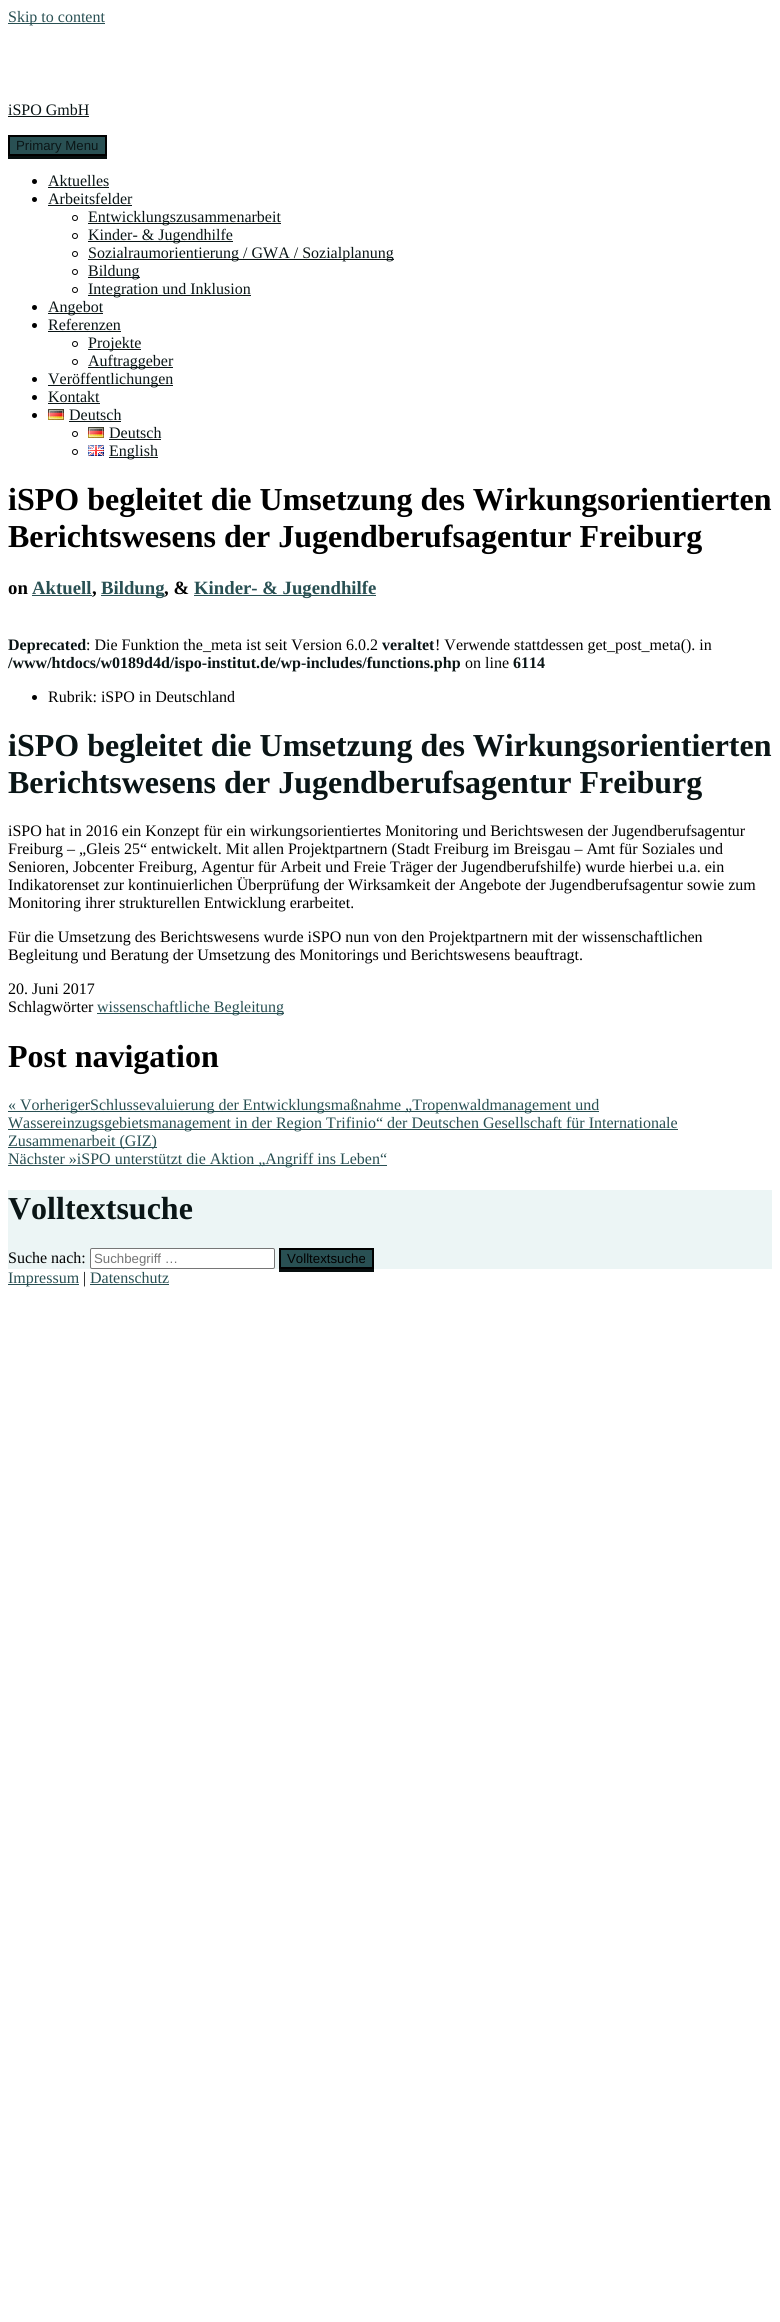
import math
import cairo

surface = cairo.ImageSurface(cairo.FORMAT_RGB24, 780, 2322)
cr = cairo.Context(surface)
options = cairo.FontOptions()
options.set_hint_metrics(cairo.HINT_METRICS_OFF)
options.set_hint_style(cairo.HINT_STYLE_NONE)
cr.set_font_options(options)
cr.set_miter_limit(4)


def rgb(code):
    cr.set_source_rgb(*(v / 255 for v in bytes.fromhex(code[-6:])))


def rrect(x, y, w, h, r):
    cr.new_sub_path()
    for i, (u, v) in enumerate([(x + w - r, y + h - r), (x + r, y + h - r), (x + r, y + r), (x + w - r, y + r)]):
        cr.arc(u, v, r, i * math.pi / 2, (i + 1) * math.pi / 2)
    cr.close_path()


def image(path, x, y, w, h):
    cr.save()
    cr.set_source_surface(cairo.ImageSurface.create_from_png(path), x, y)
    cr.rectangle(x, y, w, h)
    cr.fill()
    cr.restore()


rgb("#ffffff")
cr.paint()
for x, y, w, h, color in [
    (8, 23, 97, 1, "#295053"),
    (8, 116, 81, 1, "#0a1516"),
    (8, 156, 99, 3, "#070e0e"),
]:
    rgb(color)
    cr.rectangle(x, y, w, h)
    cr.fill()
rgb("#295053")
cr.rectangle(9, 136, 97, 19)
cr.fill_preserve()
rgb("#000000")
cr.stroke()
cr.arc(34.5, 181.5, 2.5, 0, 2 * math.pi)
cr.fill()
rgb("#0a1516")
cr.rectangle(48, 187, 61, 1)
cr.fill()
rgb("#000000")
cr.arc(34.5, 199.5, 2.5, 0, 2 * math.pi)
cr.fill()
rgb("#0a1516")
cr.rectangle(48, 205, 84, 1)
cr.fill()
cr.arc(75, 218, 2.5, 0, 2 * math.pi)
rgb("#000000")
cr.set_line_width(1)
cr.stroke()
rgb("#0a1516")
cr.rectangle(88, 223, 193, 1)
cr.fill()
cr.arc(75, 236, 2.5, 0, 2 * math.pi)
rgb("#000000")
cr.stroke()
rgb("#0a1516")
cr.rectangle(88, 241, 145, 1)
cr.fill()
cr.arc(75, 254, 2.5, 0, 2 * math.pi)
rgb("#000000")
cr.stroke()
rgb("#0a1516")
cr.rectangle(88, 259, 306, 1)
cr.fill()
cr.arc(75, 272, 2.5, 0, 2 * math.pi)
rgb("#000000")
cr.stroke()
rgb("#0a1516")
cr.rectangle(88, 277, 52, 1)
cr.fill()
cr.arc(75, 290, 2.5, 0, 2 * math.pi)
rgb("#000000")
cr.stroke()
rgb("#0a1516")
cr.rectangle(88, 295, 163, 1)
cr.fill()
rgb("#000000")
cr.arc(34.5, 307.5, 2.5, 0, 2 * math.pi)
cr.fill()
rgb("#0a1516")
cr.rectangle(48, 313, 55, 1)
cr.fill()
rgb("#000000")
cr.arc(34.5, 325.5, 2.5, 0, 2 * math.pi)
cr.fill()
rgb("#0a1516")
cr.rectangle(48, 331, 73, 1)
cr.fill()
cr.arc(75, 344, 2.5, 0, 2 * math.pi)
rgb("#000000")
cr.stroke()
rgb("#0a1516")
cr.rectangle(88, 349, 53, 1)
cr.fill()
cr.arc(75, 362, 2.5, 0, 2 * math.pi)
rgb("#000000")
cr.stroke()
rgb("#0a1516")
cr.rectangle(88, 367, 85, 1)
cr.fill()
rgb("#000000")
cr.arc(34.5, 379.5, 2.5, 0, 2 * math.pi)
cr.fill()
rgb("#0a1516")
cr.rectangle(48, 385, 125, 1)
cr.fill()
rgb("#000000")
cr.arc(34.5, 397.5, 2.5, 0, 2 * math.pi)
cr.fill()
rgb("#0a1516")
cr.rectangle(48, 403, 52, 1)
cr.fill()
rgb("#000000")
cr.arc(34.5, 415.5, 2.5, 0, 2 * math.pi)
cr.fill()
image("img/1.png", 48, 409, 16, 11)
rgb("#0a1516")
cr.rectangle(69, 421, 52, 1)
cr.fill()
cr.arc(75, 434, 2.5, 0, 2 * math.pi)
rgb("#000000")
cr.stroke()
image("img/1.png", 88, 427, 16, 11)
rgb("#0a1516")
cr.rectangle(109, 439, 52, 1)
cr.fill()
cr.arc(75, 452, 2.5, 0, 2 * math.pi)
rgb("#000000")
cr.stroke()
image("img/2.png", 88, 445, 16, 11)
for x, y, w, h, color in [
    (109, 457, 49, 1, "#0a1516"),
    (32, 595, 60, 1, "#295053"),
    (101, 595, 63, 1, "#295053"),
    (194, 595, 182, 1, "#295053"),
]:
    rgb(color)
    cr.rectangle(x, y, w, h)
    cr.fill()
rgb("#000000")
cr.arc(34.5, 697.5, 2.5, 0, 2 * math.pi)
cr.fill()
for x, y, w, h, color in [
    (97, 1013, 187, 1, "#295053"),
    (8, 1111, 82, 1, "#295053"),
    (90, 1111, 509, 1, "#295053"),
    (8, 1129, 670, 1, "#295053"),
    (8, 1147, 149, 1, "#295053"),
    (8, 1165, 379, 1, "#295053"),
    (8, 1190, 764, 79, "#ecf5f5"),
]:
    rgb(color)
    cr.rectangle(x, y, w, h)
    cr.fill()
rgb("#ffffff")
rrect(90.5, 1248.5, 184, 20, 1.5)
cr.fill_preserve()
rgb("#767676")
cr.stroke()
rgb("#070e0e")
cr.rectangle(279, 1269, 95, 3)
cr.fill()
rgb("#295053")
cr.rectangle(280, 1249, 93, 19)
cr.fill_preserve()
rgb("#000000")
cr.set_line_width(2)
cr.stroke()
rgb("#295053")
cr.rectangle(8, 1284, 71, 1)
cr.fill()
cr.rectangle(90, 1284, 79, 1)
cr.fill()
cr.select_font_face("Liberation Serif")
cr.set_font_size(16)
cr.move_to(8, 22)
cr.show_text("Skip to content")
rgb("#0a1516")
cr.move_to(8, 115)
cr.show_text("iSPO GmbH")
cr.select_font_face("Liberation Sans")
cr.set_font_size(13.25)
cr.move_to(16, 150)
cr.show_text("Primary Menu")
cr.select_font_face("Liberation Serif")
cr.set_font_size(16)
for x, y, s in [
    (48, 186, "Aktuelles"),
    (48, 204, "Arbeitsfelder"),
    (88, 222, "Entwicklungszusammenarbeit"),
    (88, 240, "Kinder- & Jugendhilfe"),
    (88, 258, "Sozialraumorientierung / GWA / Sozialplanung"),
    (88, 276, "Bildung"),
    (88, 294, "Integration und Inklusion"),
    (48, 312, "Angebot"),
    (48, 330, "Referenzen"),
    (88, 348, "Projekte"),
    (88, 366, "Auftraggeber"),
    (48, 384, "Veröffentlichungen"),
    (48, 402, "Kontakt"),
    (69, 420, "Deutsch"),
    (109, 438, "Deutsch"),
    (109, 456, "English"),
]:
    cr.move_to(x, y)
    cr.show_text(s)
cr.select_font_face("Liberation Serif", cairo.FONT_SLANT_NORMAL, cairo.FONT_WEIGHT_BOLD)
cr.set_font_size(32)
rgb("#000000")
cr.move_to(8, 510)
cr.show_text("iSPO begleitet die Umsetzung des Wirkungsorientierten")
cr.move_to(8, 547)
cr.show_text("Berichtswesens der Jugendberufsagentur Freiburg")
cr.set_font_size(18.75)
cr.move_to(8, 594)
cr.show_text("on")
rgb("#295053")
cr.move_to(32, 594)
cr.show_text("Aktuell")
rgb("#000000")
cr.move_to(92, 594)
cr.show_text(",")
rgb("#295053")
cr.move_to(101, 594)
cr.show_text("Bildung")
rgb("#000000")
cr.move_to(164, 594)
cr.show_text(", &")
rgb("#295053")
cr.move_to(194, 594)
cr.show_text("Kinder- & Jugendhilfe")
cr.set_font_size(16)
rgb("#0a1516")
cr.move_to(8, 650)
cr.show_text("Deprecated")
cr.select_font_face("Liberation Serif")
rgb("#000000")
cr.move_to(86, 650)
cr.show_text(": Die Funktion the_meta ist seit Version 6.0.2")
cr.select_font_face("Liberation Serif", cairo.FONT_SLANT_NORMAL, cairo.FONT_WEIGHT_BOLD)
rgb("#0a1516")
cr.move_to(382, 650)
cr.show_text("veraltet")
cr.select_font_face("Liberation Serif")
rgb("#000000")
cr.move_to(435, 650)
cr.show_text("! Verwende stattdessen get_post_meta(). in")
cr.select_font_face("Liberation Serif", cairo.FONT_SLANT_NORMAL, cairo.FONT_WEIGHT_BOLD)
rgb("#0a1516")
cr.move_to(8, 668)
cr.show_text("/www/htdocs/w0189d4d/ispo-institut.de/wp-includes/functions.php")
cr.select_font_face("Liberation Serif")
rgb("#000000")
cr.move_to(465, 668)
cr.show_text("on line")
cr.select_font_face("Liberation Serif", cairo.FONT_SLANT_NORMAL, cairo.FONT_WEIGHT_BOLD)
rgb("#0a1516")
cr.move_to(513, 668)
cr.show_text("6114")
cr.select_font_face("Liberation Serif")
rgb("#000000")
cr.move_to(48, 702)
cr.show_text("Rubrik: iSPO in Deutschland")
cr.select_font_face("Liberation Serif", cairo.FONT_SLANT_NORMAL, cairo.FONT_WEIGHT_BOLD)
cr.set_font_size(32)
rgb("#0a1516")
cr.move_to(8, 756)
cr.show_text("iSPO begleitet die Umsetzung des Wirkungsorientierten")
cr.move_to(8, 793)
cr.show_text("Berichtswesens der Jugendberufsagentur Freiburg")
cr.select_font_face("Liberation Serif")
cr.set_font_size(16)
rgb("#000000")
for x, y, s in [
    (8, 836, "iSPO hat in 2016 ein Konzept für ein wirkungsorientiertes Monitoring und Berichtswesen der Jugendberufsagentur"),
    (8, 854, "Freiburg – „Gleis 25“ entwickelt. Mit allen Projektpartnern (Stadt Freiburg im Breisgau – Amt für Soziales und"),
    (8, 872, "Senioren, Jobcenter Freiburg, Agentur für Arbeit und Freie Träger der Jugendberufshilfe) wurde hierbei u.a. ein"),
    (8, 890, "Indikatorenset zur kontinuierlichen Überprüfung der Wirksamkeit der Angebote der Jugendberufsagentur sowie zum"),
    (8, 908, "Monitoring ihrer strukturellen Entwicklung erarbeitet."),
    (8, 942, "Für die Umsetzung des Berichtswesens wurde iSPO nun von den Projektpartnern mit der wissenschaftlichen"),
    (8, 960, "Begleitung und Beratung der Umsetzung des Monitorings und Berichtswesens beauftragt."),
    (8, 994, "20. Juni 2017"),
    (8, 1012, "Schlagwörter"),
]:
    cr.move_to(x, y)
    cr.show_text(s)
rgb("#295053")
cr.move_to(97, 1012)
cr.show_text("wissenschaftliche Begleitung")
cr.select_font_face("Liberation Serif", cairo.FONT_SLANT_NORMAL, cairo.FONT_WEIGHT_BOLD)
cr.set_font_size(32)
rgb("#000000")
cr.move_to(8, 1067)
cr.show_text("Post navigation")
cr.select_font_face("Liberation Serif")
cr.set_font_size(16)
rgb("#295053")
for x, y, s in [
    (8, 1110, "« Vorheriger"),
    (90, 1110, "Schlussevaluierung der Entwicklungsmaßnahme „Tropenwaldmanagement und"),
    (8, 1128, "Wassereinzugsgebietsmanagement in der Region Trifinio“ der Deutschen Gesellschaft für Internationale"),
    (8, 1146, "Zusammenarbeit (GIZ)"),
    (8, 1164, "Nächster »iSPO unterstützt die Aktion „Angriff ins Leben“"),
]:
    cr.move_to(x, y)
    cr.show_text(s)
cr.select_font_face("Liberation Serif", cairo.FONT_SLANT_NORMAL, cairo.FONT_WEIGHT_BOLD)
cr.set_font_size(32)
rgb("#0a1516")
cr.move_to(8, 1219)
cr.show_text("Volltextsuche")
cr.select_font_face("Liberation Serif")
cr.set_font_size(16)
rgb("#000000")
cr.move_to(8, 1263)
cr.show_text("Suche nach:")
cr.select_font_face("Liberation Sans")
cr.set_font_size(13.25)
rgb("#757575")
cr.move_to(94, 1263)
cr.show_text("Suchbegriff …")
rgb("#000000")
cr.move_to(287, 1263)
cr.show_text("Volltextsuche")
cr.select_font_face("Liberation Serif")
cr.set_font_size(16)
rgb("#295053")
cr.move_to(8, 1283)
cr.show_text("Impressum")
rgb("#000000")
cr.move_to(83, 1283)
cr.show_text("|")
rgb("#295053")
cr.move_to(90, 1283)
cr.show_text("Datenschutz")
surface.write_to_png("page.png")
